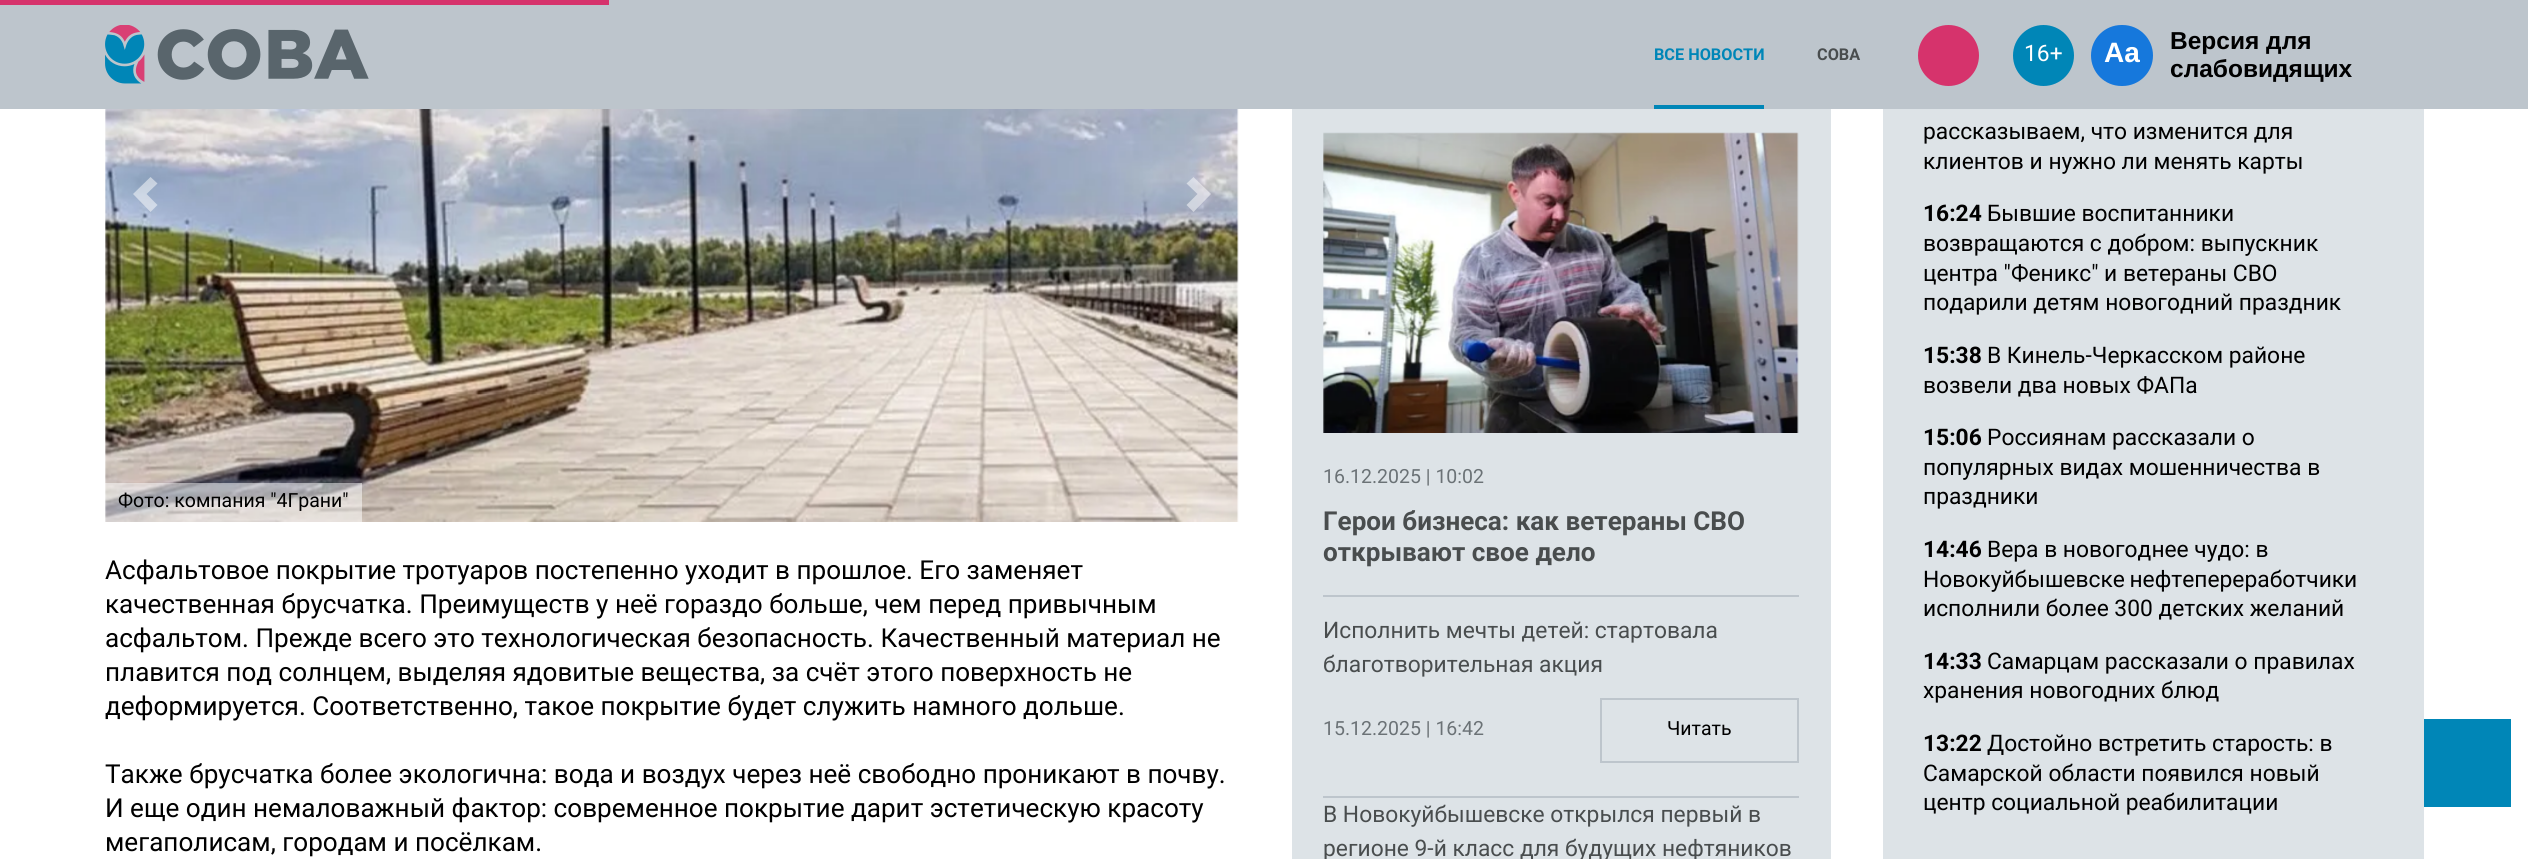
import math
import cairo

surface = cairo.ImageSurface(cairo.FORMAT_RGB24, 2528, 859)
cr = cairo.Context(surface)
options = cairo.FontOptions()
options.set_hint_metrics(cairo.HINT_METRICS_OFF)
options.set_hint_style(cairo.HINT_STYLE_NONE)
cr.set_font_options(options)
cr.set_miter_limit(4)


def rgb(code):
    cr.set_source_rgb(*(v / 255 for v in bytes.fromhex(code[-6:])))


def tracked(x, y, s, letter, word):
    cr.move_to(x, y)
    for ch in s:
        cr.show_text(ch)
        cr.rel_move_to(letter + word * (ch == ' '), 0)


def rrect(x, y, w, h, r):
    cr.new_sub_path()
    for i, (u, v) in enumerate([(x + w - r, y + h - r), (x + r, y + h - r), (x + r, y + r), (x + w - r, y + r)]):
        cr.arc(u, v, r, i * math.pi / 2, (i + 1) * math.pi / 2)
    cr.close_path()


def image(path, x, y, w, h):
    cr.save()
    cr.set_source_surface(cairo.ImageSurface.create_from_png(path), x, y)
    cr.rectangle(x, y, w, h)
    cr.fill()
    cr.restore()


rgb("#ffffff")
cr.paint()
rgb("#bdc5cc")
cr.rectangle(0, 0, 2528, 109)
cr.fill()
rgb("#d6336c")
cr.rectangle(0, 0, 609, 5)
cr.fill()
image("img/1.png", 105, 25, 264, 59)
rgb("#0086b7")
cr.rectangle(1654, 105, 110, 4)
cr.fill()
rgb("#d6336c")
cr.arc(1948.5, 55.5, 30.5, 0, 2 * math.pi)
cr.fill()
rgb("#0086b7")
cr.arc(2043.5, 55.5, 30.5, 0, 2 * math.pi)
cr.fill()
rgb("#1678dc")
rrect(2093.5, 27.5, 57, 56, 28)
cr.fill_preserve()
cr.set_line_width(5)
cr.stroke()
image("img/2.png", 105, 109, 1134, 413)
cr.set_source_rgba(1, 1, 1, 0.5)
cr.new_path()
cr.move_to(150.5, 177)
cr.line_to(133, 194)
cr.line_to(150.5, 212)
cr.line_to(157.5, 205)
cr.line_to(146.5, 194)
cr.line_to(157.5, 183.5)
cr.close_path()
cr.fill()
cr.new_path()
cr.move_to(1193.5, 177)
cr.line_to(1186.5, 183.5)
cr.line_to(1197.5, 194)
cr.line_to(1186.5, 205)
cr.line_to(1193.5, 212)
cr.line_to(1211, 194)
cr.close_path()
cr.fill()
cr.rectangle(105, 483, 257, 39)
cr.fill()
rgb("#dde3e7")
cr.rectangle(1292, 109, 539, 750)
cr.fill()
rgb("#bdc5cc")
cr.rectangle(1323, 595, 476, 2)
cr.fill()
image("img/3.png", 1323, 132, 476, 301)
cr.rectangle(1323, 796, 476, 2)
cr.fill()
cr.rectangle(1601, 699, 197, 63)
cr.set_line_width(2)
cr.stroke()
rgb("#dde3e7")
cr.rectangle(1883, 109, 541, 750)
cr.fill()
rgb("#0086b7")
cr.rectangle(2424, 719, 87, 88)
cr.fill()
cr.select_font_face("Roboto", cairo.FONT_SLANT_NORMAL, cairo.FONT_WEIGHT_BOLD)
cr.set_font_size(16.25)
cr.move_to(1654, 60)
cr.show_text("ВСЕ НОВОСТИ")
rgb("#494d4e")
cr.move_to(1817, 60)
cr.show_text("СОВА")
cr.select_font_face("Roboto")
cr.set_font_size(22.8)
rgb("#ffffff")
cr.move_to(2024, 61)
cr.show_text("16+")
cr.select_font_face("Liberation Sans", cairo.FONT_SLANT_NORMAL, cairo.FONT_WEIGHT_BOLD)
cr.set_font_size(28)
cr.move_to(2104, 62)
cr.show_text("Aa")
cr.set_font_size(24.5)
rgb("#000000")
cr.move_to(2170, 49)
cr.show_text("Версия для")
cr.move_to(2170, 77)
cr.show_text("слабовидящих")
cr.select_font_face("Roboto")
cr.set_font_size(19.5)
cr.move_to(118, 507)
cr.show_text("Фото: компания \"4Грани\"")
cr.set_font_size(26.1)
for x, y, s in [
    (105, 579, "Асфальтовое покрытие тротуаров постепенно уходит в прошлое. Его заменяет"),
    (105, 613, "качественная брусчатка. Преимуществ у неё гораздо больше, чем перед привычным"),
    (105, 647, "асфальтом. Прежде всего это технологическая безопасность. Качественный материал не"),
    (105, 681, "плавится под солнцем, выделяя ядовитые вещества, за счёт этого поверхность не"),
    (105, 715, "деформируется. Соответственно, такое покрытие будет служить намного дольше."),
    (105, 783, "Также брусчатка более экологична: вода и воздух через неё свободно проникают в почву."),
    (105, 817, "И еще один немаловажный фактор: современное покрытие дарит эстетическую красоту"),
    (105, 851, "мегаполисам, городам и посёлкам."),
]:
    cr.move_to(x, y)
    cr.show_text(s)
cr.set_font_size(19.5)
rgb("#6b7276")
cr.move_to(1323, 483)
cr.show_text("16.12.2025 | 10:02")
cr.select_font_face("Roboto", cairo.FONT_SLANT_NORMAL, cairo.FONT_WEIGHT_BOLD)
cr.set_font_size(26.1)
rgb("#494d4e")
cr.move_to(1323, 530)
cr.show_text("Герои бизнеса: как ветераны СВО")
cr.move_to(1323, 561)
cr.show_text("открывают свое дело")
cr.select_font_face("Roboto")
cr.set_font_size(22.8)
cr.move_to(1323, 638)
cr.show_text("Исполнить мечты детей: стартовала")
cr.move_to(1323, 672)
cr.show_text("благотворительная акция")
cr.set_font_size(19.5)
rgb("#6b7276")
cr.move_to(1323, 735)
cr.show_text("15.12.2025 | 16:42")
rgb("#000000")
cr.move_to(1667, 735)
cr.show_text("Читать")
cr.set_font_size(22.8)
rgb("#494d4e")
cr.move_to(1323, 822)
cr.show_text("В Новокуйбышевске открылся первый в")
cr.move_to(1323, 856)
cr.show_text("регионе 9-й класс для будущих нефтяников")
rgb("#000000")
cr.move_to(1923, 139)
cr.show_text("рассказываем, что изменится для")
cr.move_to(1923, 169)
cr.show_text("клиентов и нужно ли менять карты")
cr.select_font_face("Roboto", cairo.FONT_SLANT_NORMAL, cairo.FONT_WEIGHT_BOLD)
cr.move_to(1923, 221)
cr.show_text("16:24")
cr.select_font_face("Roboto")
for x, y, s in [
    (1987, 221, "Бывшие воспитанники"),
    (1923, 251, "возвращаются с добром: выпускник"),
    (1923, 281, "центра \"Феникс\" и ветераны СВО"),
    (1923, 310, "подарили детям новогодний праздник"),
]:
    cr.move_to(x, y)
    cr.show_text(s)
cr.select_font_face("Roboto", cairo.FONT_SLANT_NORMAL, cairo.FONT_WEIGHT_BOLD)
cr.move_to(1923, 363)
cr.show_text("15:38")
cr.select_font_face("Roboto")
cr.move_to(1987, 363)
cr.show_text("В Кинель-Черкасском районе")
cr.move_to(1923, 393)
cr.show_text("возвели два новых ФАПа")
cr.select_font_face("Roboto", cairo.FONT_SLANT_NORMAL, cairo.FONT_WEIGHT_BOLD)
cr.move_to(1923, 445)
cr.show_text("15:06")
cr.select_font_face("Roboto")
for x, y, s in [
    (1987, 445, "Россиянам рассказали о"),
    (1923, 475, "популярных видах мошенничества в"),
    (1923, 504, "праздники"),
]:
    cr.move_to(x, y)
    cr.show_text(s)
cr.select_font_face("Roboto", cairo.FONT_SLANT_NORMAL, cairo.FONT_WEIGHT_BOLD)
cr.move_to(1923, 557)
cr.show_text("14:46")
cr.select_font_face("Roboto")
cr.move_to(1987, 557)
cr.show_text("Вера в новогоднее чудо: в")
tracked(1923, 587, "Новокуйбышевске нефтепереработчики", 0, -1)
cr.move_to(1923, 616)
cr.show_text("исполнили более 300 детских желаний")
cr.select_font_face("Roboto", cairo.FONT_SLANT_NORMAL, cairo.FONT_WEIGHT_BOLD)
cr.move_to(1923, 669)
cr.show_text("14:33")
cr.select_font_face("Roboto")
cr.move_to(1987, 669)
cr.show_text("Самарцам рассказали о правилах")
cr.move_to(1923, 698)
cr.show_text("хранения новогодних блюд")
cr.select_font_face("Roboto", cairo.FONT_SLANT_NORMAL, cairo.FONT_WEIGHT_BOLD)
cr.move_to(1923, 751)
cr.show_text("13:22")
cr.select_font_face("Roboto")
for x, y, s in [
    (1987, 751, "Достойно встретить старость: в"),
    (1923, 781, "Самарской области появился новый"),
    (1923, 810, "центр социальной реабилитации"),
]:
    cr.move_to(x, y)
    cr.show_text(s)
surface.write_to_png("page.png")
